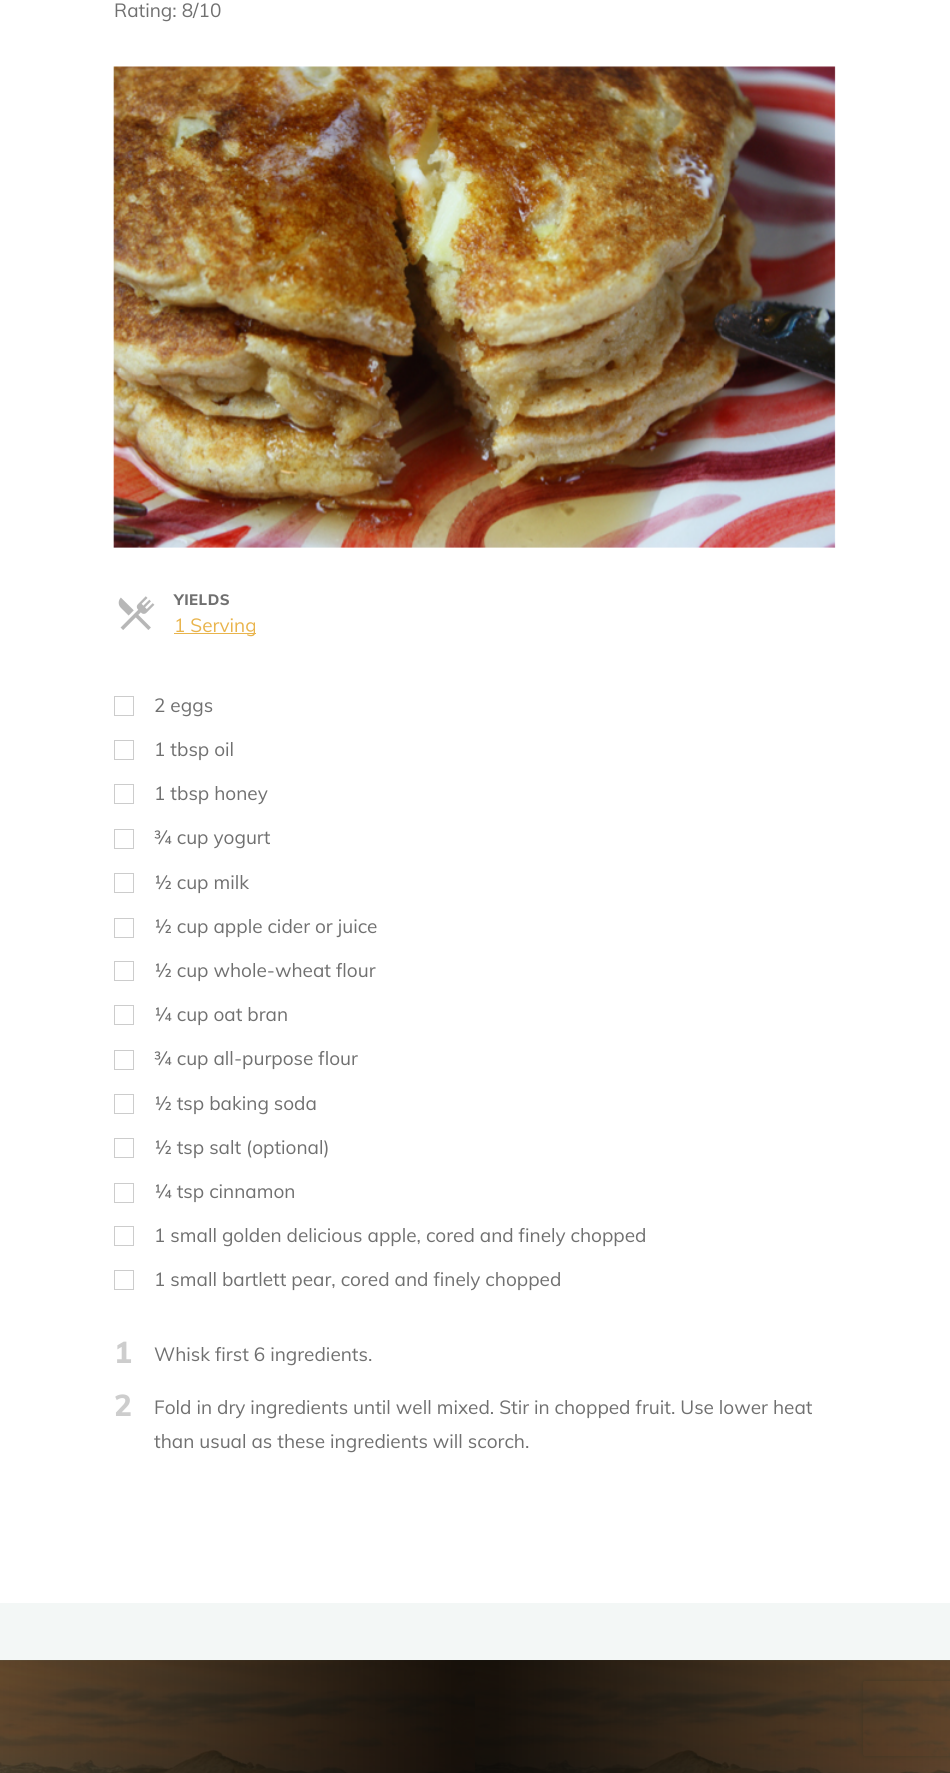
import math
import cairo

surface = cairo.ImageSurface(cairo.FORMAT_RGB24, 950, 1773)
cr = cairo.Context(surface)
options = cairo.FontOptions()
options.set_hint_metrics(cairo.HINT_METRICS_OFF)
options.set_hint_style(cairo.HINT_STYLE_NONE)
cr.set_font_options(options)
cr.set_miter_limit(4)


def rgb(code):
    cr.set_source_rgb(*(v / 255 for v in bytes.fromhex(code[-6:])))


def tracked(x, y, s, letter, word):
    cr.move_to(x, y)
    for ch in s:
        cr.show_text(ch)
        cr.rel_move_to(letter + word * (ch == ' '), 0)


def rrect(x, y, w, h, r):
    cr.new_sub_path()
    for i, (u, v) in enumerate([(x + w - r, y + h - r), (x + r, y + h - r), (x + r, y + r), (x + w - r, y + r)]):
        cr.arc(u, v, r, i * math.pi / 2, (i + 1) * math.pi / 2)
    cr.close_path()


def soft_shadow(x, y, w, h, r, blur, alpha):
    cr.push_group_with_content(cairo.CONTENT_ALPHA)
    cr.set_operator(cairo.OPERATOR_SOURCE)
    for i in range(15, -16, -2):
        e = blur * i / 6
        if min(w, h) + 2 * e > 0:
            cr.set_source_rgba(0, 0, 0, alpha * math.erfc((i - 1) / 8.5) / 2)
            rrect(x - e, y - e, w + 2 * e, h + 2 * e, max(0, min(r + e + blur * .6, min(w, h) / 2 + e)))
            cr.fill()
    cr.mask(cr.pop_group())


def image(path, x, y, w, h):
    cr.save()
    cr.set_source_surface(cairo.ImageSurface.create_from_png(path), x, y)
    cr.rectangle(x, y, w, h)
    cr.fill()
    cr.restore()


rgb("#f3f7f6")
cr.paint()
rgb("#eed6a1")
cr.rectangle(0, 1660, 950, 1)
cr.fill()
rgb("#ffffff")
cr.rectangle(0, 0, 950, 1603)
cr.fill()
image("img/1.png", 113, 66, 723, 482)
image("img/2.png", 118, 596, 37, 34)
rgb("#e9b44c")
cr.rectangle(174, 633, 82, 1)
cr.fill()
cr.rectangle(114.5, 696.5, 19, 19)
rgb("#cccccc")
cr.set_line_width(1)
cr.stroke()
cr.rectangle(114.5, 740.5, 19, 19)
cr.stroke()
cr.rectangle(114.5, 784.5, 19, 19)
cr.stroke()
cr.rectangle(114.5, 829.5, 19, 19)
cr.stroke()
cr.rectangle(114.5, 873.5, 19, 19)
cr.stroke()
cr.rectangle(114.5, 918.5, 19, 19)
cr.stroke()
cr.rectangle(114.5, 961.5, 19, 19)
cr.stroke()
cr.rectangle(114.5, 1005.5, 19, 19)
cr.stroke()
cr.rectangle(114.5, 1050.5, 19, 19)
cr.stroke()
cr.rectangle(114.5, 1094.5, 19, 19)
cr.stroke()
cr.rectangle(114.5, 1138.5, 19, 19)
cr.stroke()
cr.rectangle(114.5, 1183.5, 19, 19)
cr.stroke()
cr.rectangle(114.5, 1226.5, 19, 19)
cr.stroke()
cr.rectangle(114.5, 1270.5, 19, 19)
cr.stroke()
image("img/3.png", 0, 1660, 475, 113)
gradient = cairo.LinearGradient(0, 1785, 475, 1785)
gradient.add_color_stop_rgba(0, 0, 0, 0, 0.6)
gradient.add_color_stop_rgba(0.95, 0, 0, 0, 0.9)
cr.set_source(gradient)
cr.rectangle(0, 1660, 475, 113)
cr.fill()
image("img/4.png", 475, 1660, 475, 113)
cr.save()
cr.set_fill_rule(cairo.FILL_RULE_EVEN_ODD)
cr.new_path()
cr.move_to(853, 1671)
cr.line_to(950, 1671)
cr.line_to(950, 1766)
cr.line_to(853, 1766)
cr.close_path()
cr.move_to(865.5, 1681)
cr.line_to(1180.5, 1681)
cr.curve_to(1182, 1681, 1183, 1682, 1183, 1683.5)
cr.line_to(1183, 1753.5)
cr.curve_to(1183, 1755, 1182, 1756, 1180.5, 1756)
cr.line_to(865.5, 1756)
cr.curve_to(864, 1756, 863, 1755, 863, 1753.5)
cr.line_to(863, 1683.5)
cr.curve_to(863, 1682, 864, 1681, 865.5, 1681)
cr.close_path()
cr.clip()
rgb("#b59a66")
soft_shadow(863, 1681, 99, 75, 2.5, 3, 1)
cr.restore()
gradient = cairo.LinearGradient(950, 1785, 475, 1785)
gradient.add_color_stop_rgba(0, 0, 0, 0, 0.6)
gradient.add_color_stop_rgba(0.95, 0, 0, 0, 0.9)
cr.set_source(gradient)
cr.rectangle(475, 1660, 475, 113)
cr.fill()
cr.select_font_face("Muli")
cr.set_font_size(19)
rgb("#707070")
cr.move_to(114, 17)
cr.show_text("Rating: 8/10")
cr.select_font_face("Muli ExtraBold")
cr.set_font_size(15)
tracked(174, 605, "YIELDS", 0.5, 0)
cr.select_font_face("Muli")
cr.set_font_size(19)
rgb("#e9b44c")
cr.move_to(174, 632)
cr.show_text("1 Serving")
rgb("#707070")
for x, y, s in [
    (154, 712, "2 eggs"),
    (154, 756, "1 tbsp oil"),
    (154, 800, "1 tbsp honey"),
    (154, 844, "¾ cup yogurt"),
    (154, 889, "½ cup milk"),
    (154, 933, "½ cup apple cider or juice"),
    (154, 977, "½ cup whole-wheat flour"),
    (154, 1021, "¼ cup oat bran"),
    (154, 1065, "¾ cup all-purpose flour"),
    (154, 1110, "½ tsp baking soda"),
    (154, 1154, "½ tsp salt (optional)"),
    (154, 1198, "¼ tsp cinnamon"),
    (154, 1242, "1 small golden delicious apple, cored and finely chopped"),
    (154, 1286, "1 small bartlett pear, cored and finely chopped"),
]:
    cr.move_to(x, y)
    cr.show_text(s)
cr.select_font_face("Muli ExtraBold")
cr.set_font_size(30)
rgb("#cdcdcd")
cr.move_to(114, 1363)
cr.show_text("1")
cr.select_font_face("Muli")
cr.set_font_size(19)
rgb("#707070")
cr.move_to(154, 1361)
cr.show_text("Whisk first 6 ingredients.")
cr.select_font_face("Muli ExtraBold")
cr.set_font_size(30)
rgb("#cdcdcd")
cr.move_to(114, 1416)
cr.show_text("2")
cr.select_font_face("Muli")
cr.set_font_size(19)
rgb("#707070")
cr.move_to(154, 1414)
cr.show_text("Fold in dry ingredients until well mixed. Stir in chopped fruit. Use lower heat")
cr.move_to(154, 1448)
cr.show_text("than usual as these ingredients will scorch.")
surface.write_to_png("page.png")
